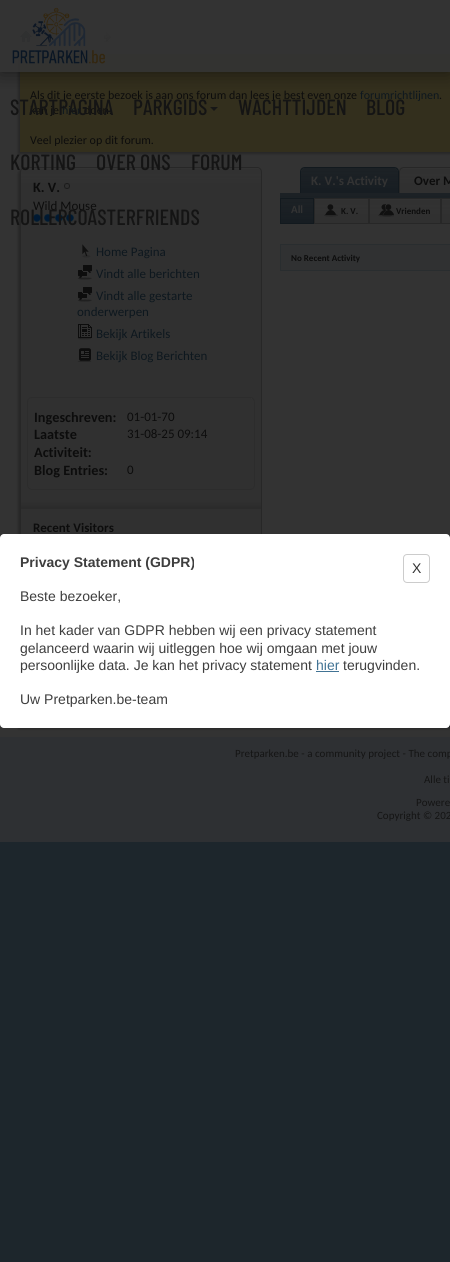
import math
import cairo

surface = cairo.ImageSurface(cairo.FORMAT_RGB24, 450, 1262)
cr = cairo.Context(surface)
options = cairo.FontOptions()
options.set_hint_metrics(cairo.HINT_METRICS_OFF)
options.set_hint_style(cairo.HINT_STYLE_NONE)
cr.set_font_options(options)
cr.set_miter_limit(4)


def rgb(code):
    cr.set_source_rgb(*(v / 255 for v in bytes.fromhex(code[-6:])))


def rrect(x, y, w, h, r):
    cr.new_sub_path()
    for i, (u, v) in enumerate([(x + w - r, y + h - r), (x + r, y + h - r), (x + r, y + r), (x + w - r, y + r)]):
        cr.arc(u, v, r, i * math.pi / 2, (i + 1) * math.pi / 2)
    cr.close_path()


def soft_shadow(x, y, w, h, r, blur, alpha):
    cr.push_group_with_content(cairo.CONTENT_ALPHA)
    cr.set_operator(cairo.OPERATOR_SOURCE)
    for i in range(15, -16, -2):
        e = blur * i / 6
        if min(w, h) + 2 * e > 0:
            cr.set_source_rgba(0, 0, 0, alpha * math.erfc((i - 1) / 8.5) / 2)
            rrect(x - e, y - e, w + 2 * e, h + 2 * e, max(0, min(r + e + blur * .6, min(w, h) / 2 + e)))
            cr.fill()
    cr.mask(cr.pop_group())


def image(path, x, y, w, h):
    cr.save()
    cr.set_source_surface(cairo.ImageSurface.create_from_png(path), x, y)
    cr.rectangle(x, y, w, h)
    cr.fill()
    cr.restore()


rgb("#1d262c")
cr.paint()
rgb("#2e3033")
cr.rectangle(0, 0, 450, 842)
cr.fill()
rgb("#333333")
cr.rectangle(0, 16, 450, 721)
cr.fill()
image("img/1.png", 20, 31, 12, 11)
image("img/2.png", 104, 32, 7, 10)
rgb("#282828")
soft_shadow(18, 56, 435, 98, 0, 1, 1)
rgb("#332f1d")
cr.rectangle(20, 54, 430, 98)
cr.fill()
rgb("#282828")
soft_shadow(18, 169, 242, 498, 5, 1, 1)
rgb("#303030")
rrect(20, 167, 242, 498, 5)
cr.fill()
image("img/3.png", 20, 168, 242, 15)
rrect(20.5, 167.5, 241, 497, 4.5)
rgb("#272727")
cr.set_line_width(1)
cr.stroke()
image("img/4.png", 23, 168, 236, 1)
image("img/5.png", 64, 183, 6, 6)
image("img/6.png", 33, 214, 8, 8)
image("img/6.png", 44, 214, 8, 8)
image("img/6.png", 55, 214, 8, 8)
image("img/6.png", 66, 214, 8, 8)
image("img/7.png", 82, 244, 9, 14)
image("img/8.png", 77, 265, 15, 15)
image("img/8.png", 77, 287, 15, 15)
image("img/9.png", 77, 324, 15, 16)
image("img/10.png", 77, 348, 15, 14)
rrect(27.5, 397.5, 227, 92, 4.5)
rgb("#2c2c2c")
cr.stroke()
rgb("#323232")
cr.rectangle(251, 398, 1, 1)
cr.fill()
image("img/11.png", 21, 502, 240, 7)
rgb("#171d22")
cr.new_path()
cr.move_to(305, 168)
cr.line_to(394, 168)
cr.curve_to(396, 168, 398, 170, 398, 172)
cr.line_to(398, 193)
cr.line_to(301, 193)
cr.line_to(301, 172)
cr.curve_to(301, 170, 303, 168, 305, 168)
cr.close_path()
cr.fill()
image("img/12.png", 301, 168, 97, 20)
rgb("#12191e")
cr.set_fill_rule(cairo.FILL_RULE_EVEN_ODD)
cr.new_path()
cr.move_to(305, 167)
cr.line_to(394, 167)
cr.curve_to(397, 167, 399, 169, 399, 172)
cr.line_to(399, 193)
cr.line_to(300, 193)
cr.line_to(300, 172)
cr.curve_to(300, 169, 302, 167, 305, 167)
cr.close_path()
cr.move_to(305, 168)
cr.line_to(394, 168)
cr.curve_to(396, 168, 398, 170, 398, 172)
cr.line_to(398, 193)
cr.line_to(301, 193)
cr.line_to(301, 172)
cr.curve_to(301, 170, 303, 168, 305, 168)
cr.close_path()
cr.fill()
rgb("#303030")
cr.new_path()
cr.move_to(404, 168)
cr.line_to(450, 168)
cr.curve_to(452, 168, 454, 170, 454, 172)
cr.line_to(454, 193)
cr.line_to(400, 193)
cr.line_to(400, 172)
cr.curve_to(400, 170, 402, 168, 404, 168)
cr.close_path()
cr.fill()
image("img/13.png", 400, 168, 50, 15)
rgb("#272727")
cr.new_path()
cr.move_to(404, 167)
cr.line_to(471, 167)
cr.curve_to(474, 167, 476, 169, 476, 172)
cr.line_to(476, 193)
cr.line_to(399, 193)
cr.line_to(399, 172)
cr.curve_to(399, 169, 401, 167, 404, 167)
cr.close_path()
cr.move_to(404, 168)
cr.line_to(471, 168)
cr.curve_to(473, 168, 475, 170, 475, 172)
cr.line_to(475, 193)
cr.line_to(400, 193)
cr.line_to(400, 172)
cr.curve_to(400, 170, 402, 168, 404, 168)
cr.close_path()
cr.fill()
rgb("#171d22")
cr.rectangle(280, 193, 170, 5)
cr.fill()
image("img/14.png", 280, 193, 170, 5)
rgb("#303030")
cr.rectangle(315, 200, 135, 23)
cr.fill()
rgb("#171d22")
cr.rectangle(281, 199, 32, 24)
cr.fill()
image("img/15.png", 281, 199, 32, 20)
cr.rectangle(280.5, 198.5, 33, 25)
rgb("#12191e")
cr.stroke()
image("img/16.png", 315, 199, 53, 15)
cr.rectangle(314.5, 198.5, 54, 25)
rgb("#272727")
cr.stroke()
image("img/17.png", 324, 204, 14, 13)
image("img/18.png", 370, 199, 70, 15)
cr.rectangle(369.5, 198.5, 71, 25)
cr.stroke()
image("img/19.png", 378, 204, 16, 13)
image("img/20.png", 442, 199, 8, 15)
cr.rectangle(441.5, 198.5, 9, 25)
cr.stroke()
rgb("#303132")
cr.rectangle(280.5, 244.5, 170, 26)
cr.fill_preserve()
rgb("#292d2f")
cr.stroke()
rgb("#282828")
soft_shadow(18, 687, 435, 42, 0, 1, 1)
rgb("#0d1115")
cr.rectangle(448, 724, 2, 3)
cr.fill()
cr.save()
cr.set_fill_rule(cairo.FILL_RULE_WINDING)
cr.rectangle(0, 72, 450, 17)
cr.clip()
rgb("#000000")
soft_shadow(0, 0, 450, 72, 0, 10, 0.5)
cr.restore()
cr.set_source_rgba(0.2, 0.2, 0.2, 0.9)
cr.rectangle(0, 0, 450, 72)
cr.fill()
image("img/21.png", 12, 7, 94, 57)
rgb("#171717")
cr.set_fill_rule(cairo.FILL_RULE_WINDING)
cr.new_path()
cr.move_to(210, 107)
cr.line_to(218, 107)
cr.line_to(214, 111)
cr.close_path()
cr.fill()
rgb("#ffffff")
rrect(0, 534, 450, 194, 4)
cr.fill()
rrect(403.5, 554.5, 26, 28, 3.5)
rgb("#cccccc")
cr.stroke()
rgb("#417394")
cr.rectangle(316, 671, 23, 1)
cr.fill()
cr.select_font_face("Carlito")
cr.set_font_size(12)
rgb("#0c0c0c")
cr.move_to(30, 99)
cr.show_text("Als dit je eerste bezoek is aan ons forum dan lees je best even onze")
rgb("#0d171e")
cr.move_to(360, 99)
cr.show_text("forumrichtlijnen")
rgb("#0c0c0c")
cr.move_to(439, 99)
cr.show_text(".")
cr.move_to(30, 114)
cr.show_text("kan je")
rgb("#0d171e")
cr.move_to(62, 114)
cr.show_text("hier")
rgb("#0c0c0c")
cr.move_to(84, 114)
cr.show_text("doen.")
cr.move_to(30, 144)
cr.show_text("Veel plezier op dit forum.")
cr.select_font_face("Carlito", cairo.FONT_SLANT_NORMAL, cairo.FONT_WEIGHT_BOLD)
cr.set_font_size(14.25)
cr.move_to(33, 192)
cr.show_text("K. V.")
cr.select_font_face("Carlito")
cr.set_font_size(13)
cr.move_to(33, 210)
cr.show_text("Wild Mouse")
rgb("#0d171e")
for x, y, s in [
    (96, 256, "Home Pagina"),
    (96, 278, "Vindt alle berichten"),
    (96, 300, "Vindt alle gestarte"),
    (77, 316, "onderwerpen"),
    (96, 338, "Bekijk Artikels"),
    (96, 360, "Bekijk Blog Berichten"),
]:
    cr.move_to(x, y)
    cr.show_text(s)
cr.select_font_face("Carlito", cairo.FONT_SLANT_NORMAL, cairo.FONT_WEIGHT_BOLD)
cr.set_font_size(14.25)
rgb("#0c0c0c")
cr.move_to(34, 422)
cr.show_text("Ingeschreven:")
cr.select_font_face("Carlito")
cr.set_font_size(13)
cr.move_to(127, 421)
cr.show_text("01-01-70")
cr.select_font_face("Carlito", cairo.FONT_SLANT_NORMAL, cairo.FONT_WEIGHT_BOLD)
cr.set_font_size(14.25)
cr.move_to(34, 439)
cr.show_text("Laatste")
cr.move_to(34, 457)
cr.show_text("Activiteit:")
cr.select_font_face("Carlito")
cr.set_font_size(13)
cr.move_to(127, 438)
cr.show_text("31-08-25 09:14")
cr.select_font_face("Carlito", cairo.FONT_SLANT_NORMAL, cairo.FONT_WEIGHT_BOLD)
cr.set_font_size(14.25)
cr.move_to(34, 475)
cr.show_text("Blog Entries:")
cr.select_font_face("Carlito")
cr.set_font_size(13)
cr.move_to(127, 474)
cr.show_text("0")
cr.select_font_face("Carlito", cairo.FONT_SLANT_NORMAL, cairo.FONT_WEIGHT_BOLD)
cr.move_to(33, 532)
cr.show_text("Recent Visitors")
rgb("#333333")
cr.move_to(311, 185)
cr.show_text("K. V.'s Activity")
rgb("#0c0c0c")
cr.move_to(414, 185)
cr.show_text("Over M")
cr.set_font_size(11)
rgb("#333333")
cr.move_to(291, 213)
cr.show_text("All")
cr.set_font_size(9)
rgb("#0c0c0c")
for x, y, s in [
    (341, 214, "K. V."),
    (396, 214, "Vrienden"),
    (291, 261, "No Recent Activity"),
]:
    cr.move_to(x, y)
    cr.show_text(s)
cr.select_font_face("Carlito")
cr.set_font_size(11)
rgb("#141414")
for x, y, s in [
    (235, 757, "Pretparken.be - a community project - The comp"),
    (424, 783, "Alle ti"),
    (416, 806, "Powere"),
    (377, 819, "Copyright © 202"),
]:
    cr.move_to(x, y)
    cr.show_text(s)
cr.select_font_face("Barlow Condensed Medium")
cr.set_font_size(22)
for x, y, s in [
    (10, 115, "STARTPAGINA"),
    (133, 115, "PARKGIDS"),
    (238, 115, "WACHTTIJDEN"),
    (366, 115, "BLOG"),
    (10, 170, "KORTING"),
    (96, 170, "OVER ONS"),
    (191, 170, "FORUM"),
    (10, 225, "ROLLERCOASTERFRIENDS"),
]:
    cr.move_to(x, y)
    cr.show_text(s)
cr.select_font_face("Liberation Sans", cairo.FONT_SLANT_NORMAL, cairo.FONT_WEIGHT_BOLD)
cr.set_font_size(14)
rgb("#3e3e3e")
cr.move_to(20, 567)
cr.show_text("Privacy Statement (GDPR)")
cr.select_font_face("Liberation Sans")
rgb("#333333")
cr.move_to(412, 573)
cr.show_text("X")
rgb("#3e3e3e")
for x, y, s in [
    (20, 601, "Beste bezoeker,"),
    (20, 635, "In het kader van GDPR hebben wij een privacy statement"),
    (20, 653, "gelanceerd waarin wij uitleggen hoe wij omgaan met jouw"),
    (20, 670, "persoonlijke data. Je kan het privacy statement"),
]:
    cr.move_to(x, y)
    cr.show_text(s)
rgb("#417394")
cr.move_to(316, 670)
cr.show_text("hier")
rgb("#3e3e3e")
cr.move_to(343, 670)
cr.show_text("terugvinden.")
cr.move_to(20, 704)
cr.show_text("Uw Pretparken.be-team")
surface.write_to_png("page.png")
